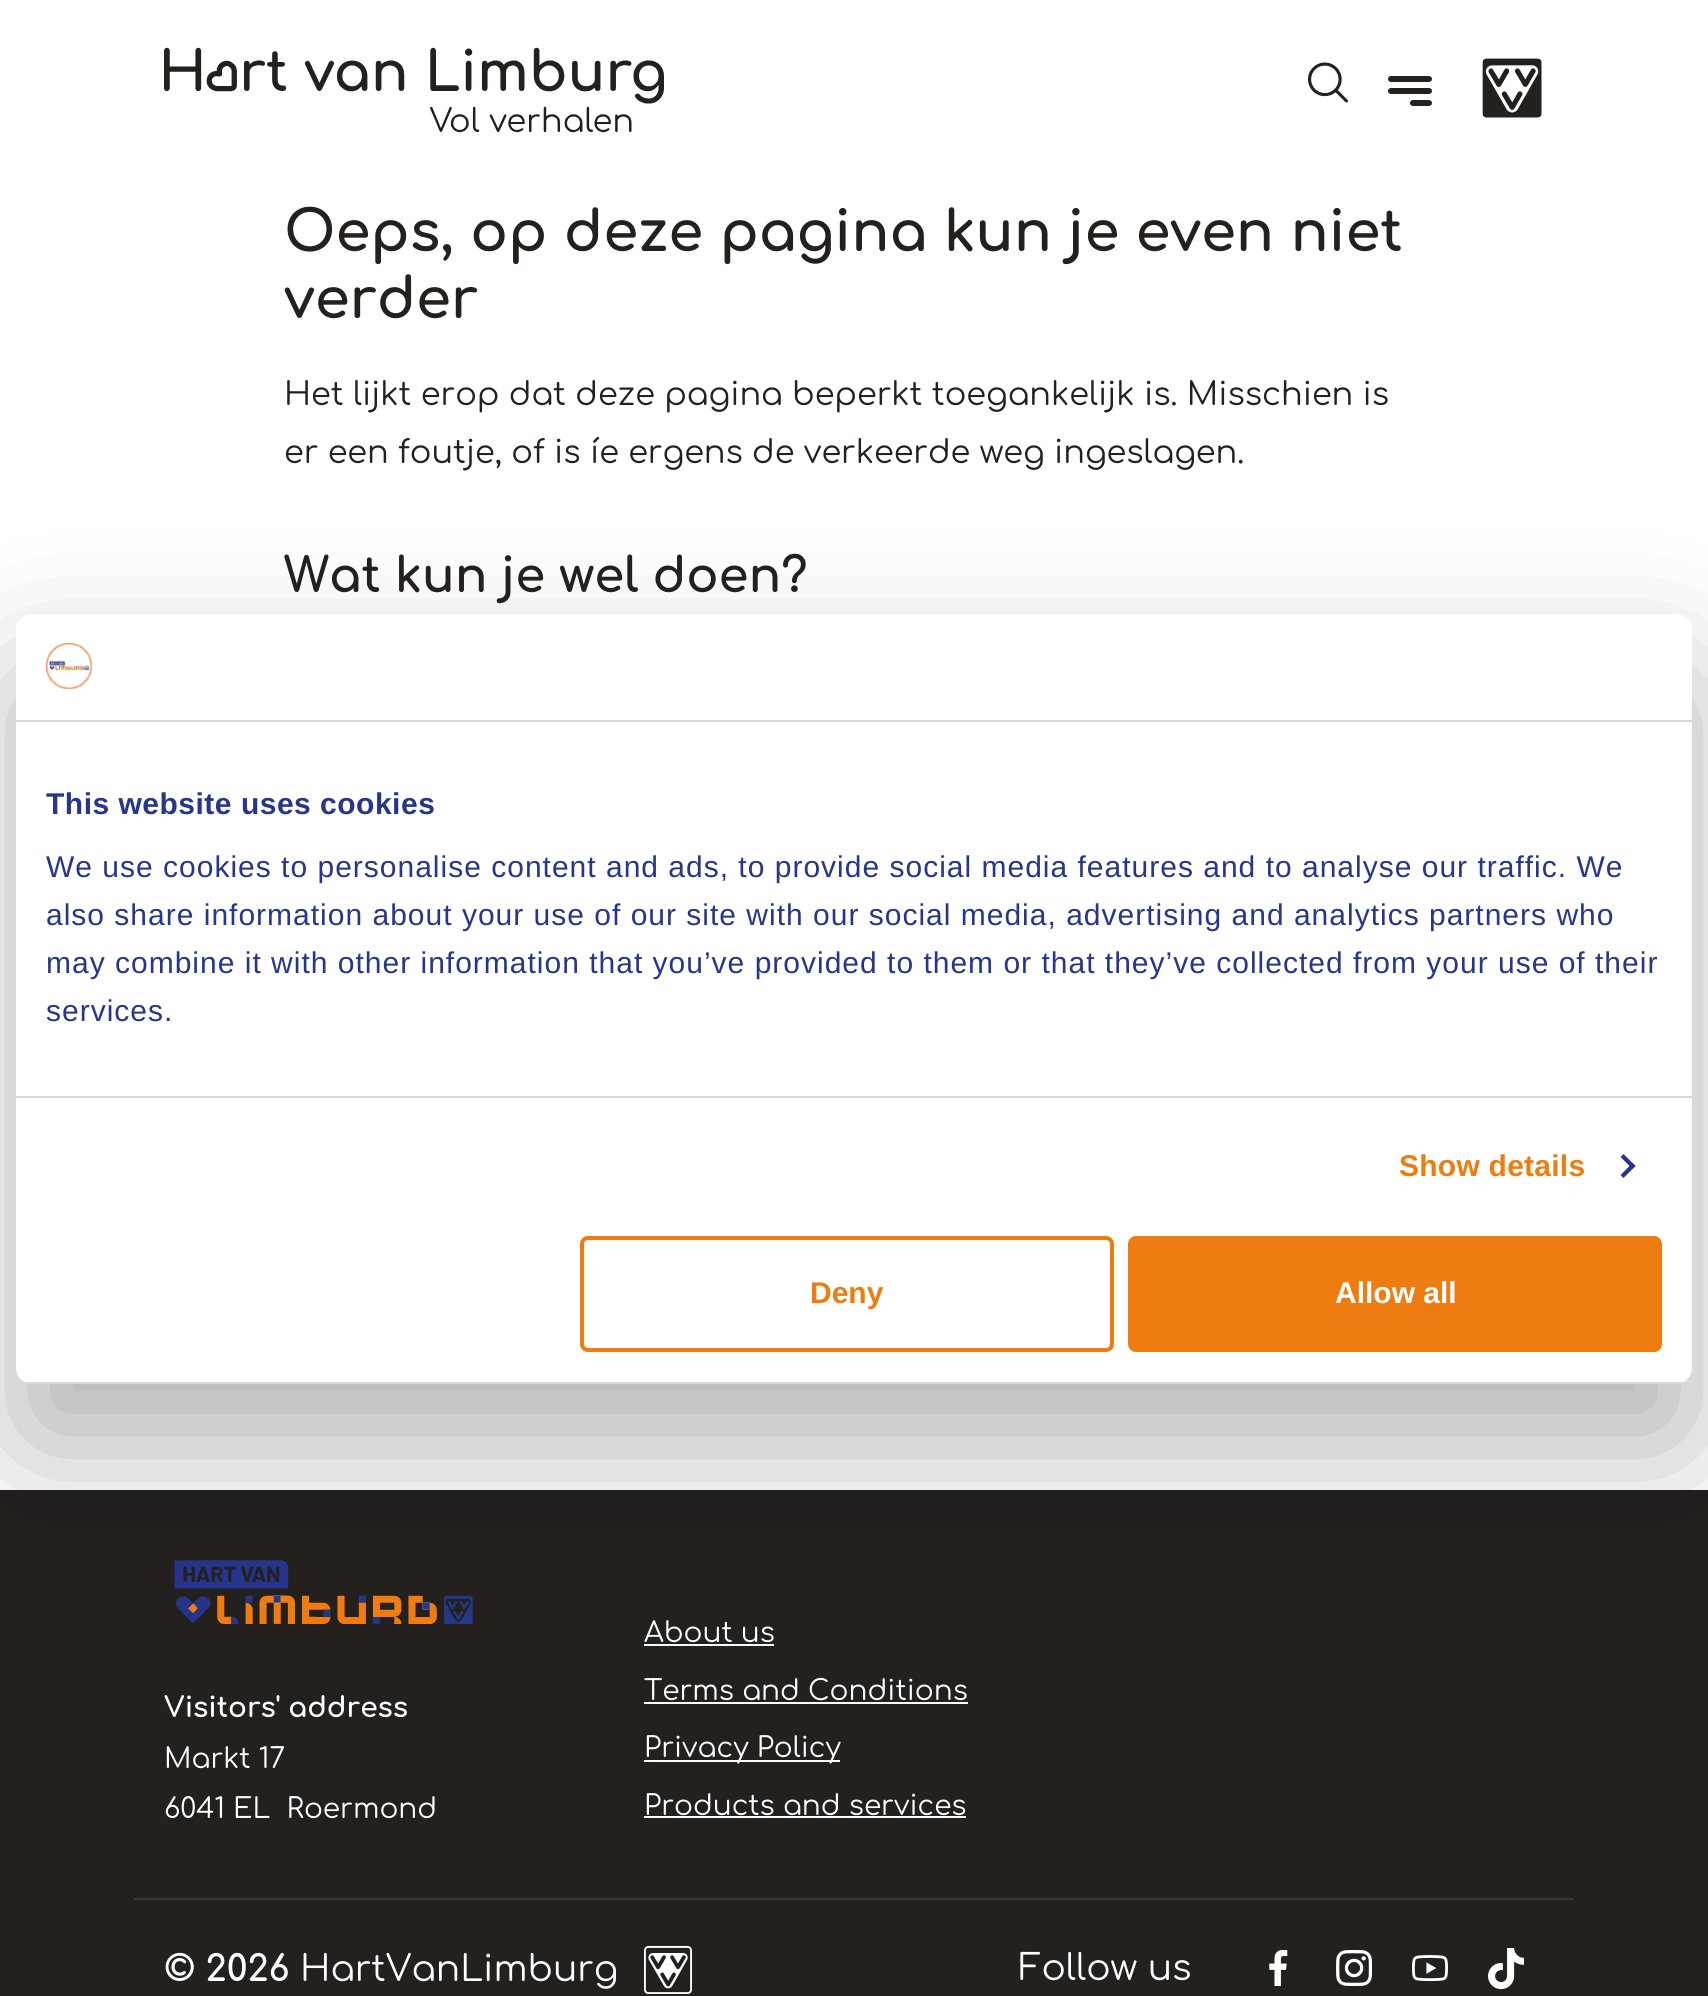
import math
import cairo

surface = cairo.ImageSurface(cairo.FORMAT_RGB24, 1708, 1996)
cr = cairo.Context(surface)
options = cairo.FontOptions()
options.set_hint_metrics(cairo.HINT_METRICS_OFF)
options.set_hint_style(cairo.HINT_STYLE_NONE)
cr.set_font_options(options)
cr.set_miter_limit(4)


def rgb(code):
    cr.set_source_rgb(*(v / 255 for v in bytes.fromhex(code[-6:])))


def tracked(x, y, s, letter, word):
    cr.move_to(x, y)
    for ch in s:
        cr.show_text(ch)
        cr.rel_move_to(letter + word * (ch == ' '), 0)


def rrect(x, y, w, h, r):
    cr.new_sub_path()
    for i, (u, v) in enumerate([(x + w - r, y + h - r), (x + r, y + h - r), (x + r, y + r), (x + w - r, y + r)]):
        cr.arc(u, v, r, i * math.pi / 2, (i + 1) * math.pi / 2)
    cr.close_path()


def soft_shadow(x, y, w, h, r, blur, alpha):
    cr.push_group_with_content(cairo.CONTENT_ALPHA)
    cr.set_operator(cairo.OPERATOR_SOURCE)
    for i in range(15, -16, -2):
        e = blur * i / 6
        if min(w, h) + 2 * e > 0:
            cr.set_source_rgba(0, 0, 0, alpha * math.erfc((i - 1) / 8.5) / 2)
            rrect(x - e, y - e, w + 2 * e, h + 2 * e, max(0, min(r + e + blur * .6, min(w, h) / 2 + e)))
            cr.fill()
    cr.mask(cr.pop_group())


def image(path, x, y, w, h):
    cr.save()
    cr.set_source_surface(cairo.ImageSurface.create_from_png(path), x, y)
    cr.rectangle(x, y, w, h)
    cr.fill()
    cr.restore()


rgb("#ffffff")
cr.paint()
image("img/1.png", 164, 47, 500, 86)
image("img/2.png", 1308, 62, 40, 41)
rgb("#23201e")
rrect(1388, 88, 44, 6, 3)
cr.fill()
rrect(1388, 76, 44, 6, 3)
cr.fill()
rrect(1410, 100, 22, 6, 3)
cr.fill()
image("img/3.png", 1482, 58, 60, 60)
cr.rectangle(0, 1490, 1708, 506)
cr.fill()
image("img/4.png", 174, 1560, 299, 64)
for x, y, w, h, color in [
    (644, 1644, 130, 2, "#ffffff"),
    (644, 1702, 324, 2, "#ffffff"),
    (644, 1760, 196, 2, "#ffffff"),
    (644, 1816, 322, 2, "#ffffff"),
    (134, 1898, 1440, 2, "#393635"),
]:
    rgb(color)
    cr.rectangle(x, y, w, h)
    cr.fill()
image("img/5.png", 644, 1946, 48, 48)
image("img/6.png", 1269, 1950, 19, 36)
image("img/7.png", 1336, 1950, 36, 36)
image("img/8.png", 1412, 1955, 36, 27)
image("img/9.png", 1488, 1948, 36, 42)
rgb("#000000")
soft_shadow(16, 678, 1676, 770, 16, 68, 0.3)
rgb("#ffffff")
rrect(16, 614, 1676, 770, 16)
cr.fill()
rgb("#d6d6d6")
cr.rectangle(16, 720, 1676, 2)
cr.fill()
image("img/10.png", 46, 643, 46, 46)
cr.rectangle(16, 1096, 1676, 2)
cr.fill()
rgb("#26368c")
cr.new_path()
cr.move_to(1623.5, 1154)
cr.line_to(1635.5, 1166)
cr.line_to(1632.5, 1169)
cr.line_to(1620.5, 1157)
cr.close_path()
cr.fill()
cr.new_path()
cr.move_to(1632.5, 1163)
cr.line_to(1635.5, 1166)
cr.line_to(1623.5, 1178)
cr.line_to(1620.5, 1175)
cr.close_path()
cr.fill()
cr.save()
rrect(16, 614, 1676, 770, 16)
cr.clip()
rgb("#d6d6d6")
cr.rectangle(16, 1382, 1676, 2)
cr.fill()
cr.restore()
rrect(582, 1238, 530, 112, 6)
rgb("#ee7c11")
cr.set_line_width(4)
cr.stroke()
rrect(1130, 1238, 530, 112, 6)
cr.fill_preserve()
cr.stroke()
cr.select_font_face("Comfortaa", cairo.FONT_SLANT_NORMAL, cairo.FONT_WEIGHT_BOLD)
cr.set_font_size(56)
rgb("#23201e")
cr.move_to(284, 251)
cr.show_text("Oeps, op deze pagina kun je even niet")
cr.move_to(284, 318)
cr.show_text("verder")
cr.select_font_face("Comfortaa")
cr.set_font_size(32)
cr.move_to(284, 405)
cr.show_text("Het lijkt erop dat deze pagina beperkt toegankelijk is. Misschien is")
cr.move_to(284, 463)
cr.show_text("er een foutje, of is íe ergens de verkeerde weg ingeslagen.")
cr.select_font_face("Comfortaa", cairo.FONT_SLANT_NORMAL, cairo.FONT_WEIGHT_BOLD)
cr.set_font_size(48)
cr.move_to(284, 592)
cr.show_text("Wat kun je wel doen?")
cr.set_font_size(28)
rgb("#ffffff")
cr.move_to(164, 1717)
cr.show_text("Visitors' address")
cr.select_font_face("Comfortaa")
for x, y, s in [
    (164, 1768, "Markt 17"),
    (164, 1818, "6041 EL  Roermond"),
    (644, 1642, "About us"),
    (644, 1700, "Terms and Conditions"),
    (644, 1757, "Privacy Policy"),
    (644, 1815, "Products and services"),
]:
    cr.move_to(x, y)
    cr.show_text(s)
cr.select_font_face("Comfortaa", cairo.FONT_SLANT_NORMAL, cairo.FONT_WEIGHT_BOLD)
cr.set_font_size(36)
cr.move_to(164, 1981)
cr.show_text("© 2026")
cr.select_font_face("Comfortaa")
cr.move_to(300, 1981)
cr.show_text("HartVanLimburg")
cr.move_to(1019, 1980)
cr.show_text("Follow us")
cr.select_font_face("Liberation Sans", cairo.FONT_SLANT_NORMAL, cairo.FONT_WEIGHT_BOLD)
cr.set_font_size(30)
rgb("#26368c")
tracked(46, 814, "This website uses cookies", 0.5, 0)
cr.select_font_face("Liberation Sans")
for x, y, s in [
    (46, 877, "We use cookies to personalise content and ads, to provide social media features and to analyse our traffic. We"),
    (46, 925, "also share information about your use of our site with our social media, advertising and analytics partners who"),
    (46, 973, "may combine it with other information that you’ve provided to them or that they’ve collected from your use of their"),
    (46, 1021, "services."),
]:
    tracked(x, y, s, 1, 0)
cr.select_font_face("Liberation Sans", cairo.FONT_SLANT_NORMAL, cairo.FONT_WEIGHT_BOLD)
rgb("#ee7c11")
tracked(1399, 1176, "Show details", 0.25, 0)
cr.move_to(810, 1303)
cr.show_text("Deny")
rgb("#ffffff")
cr.move_to(1335, 1303)
cr.show_text("Allow all")
surface.write_to_png("page.png")
